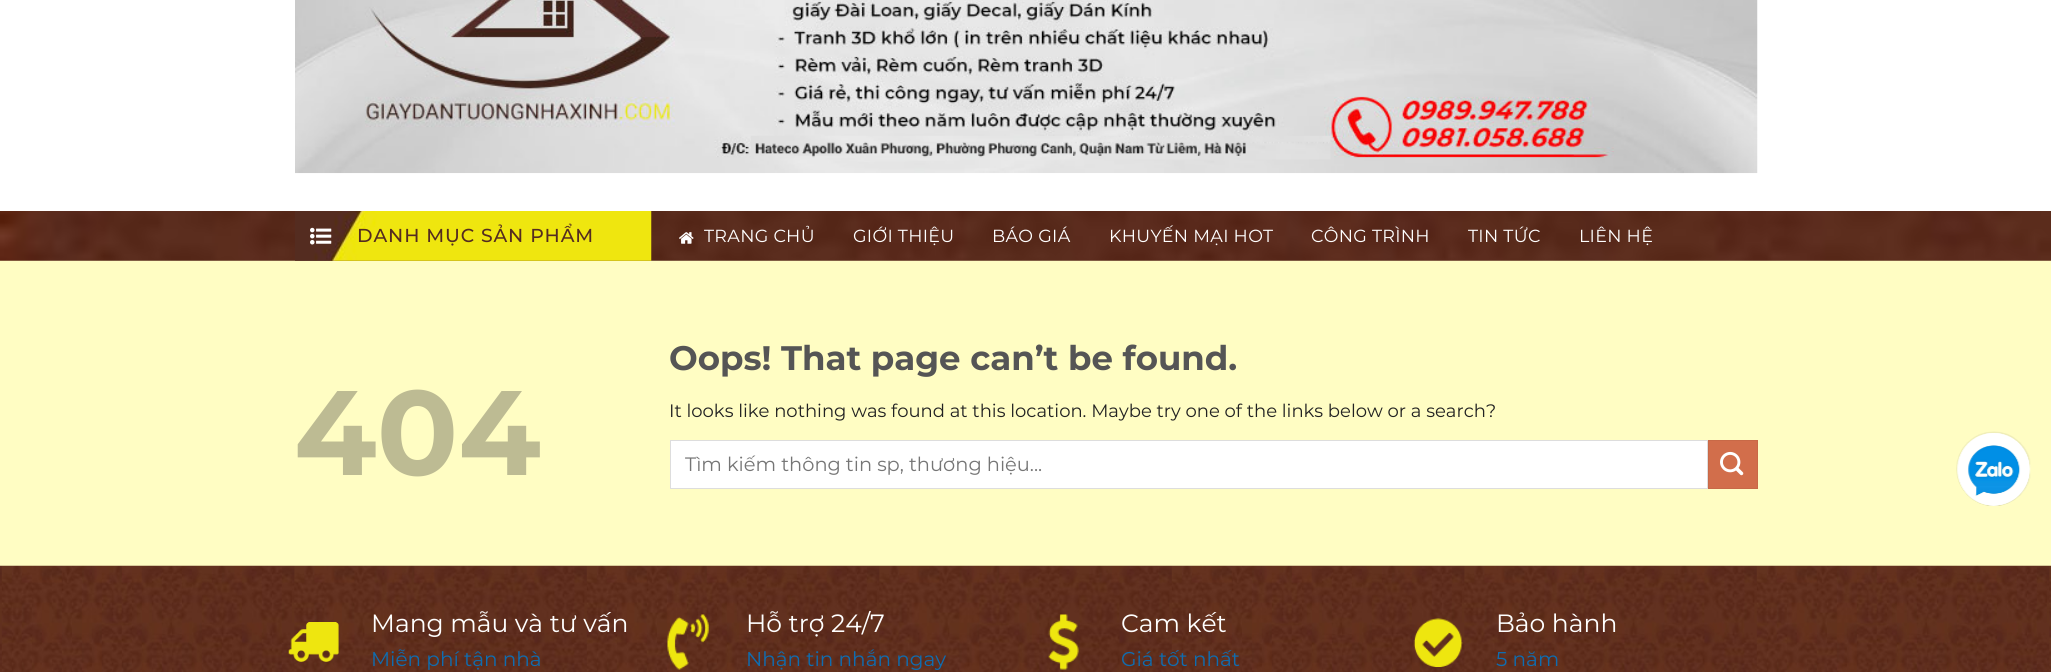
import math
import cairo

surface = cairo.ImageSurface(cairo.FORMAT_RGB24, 2051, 672)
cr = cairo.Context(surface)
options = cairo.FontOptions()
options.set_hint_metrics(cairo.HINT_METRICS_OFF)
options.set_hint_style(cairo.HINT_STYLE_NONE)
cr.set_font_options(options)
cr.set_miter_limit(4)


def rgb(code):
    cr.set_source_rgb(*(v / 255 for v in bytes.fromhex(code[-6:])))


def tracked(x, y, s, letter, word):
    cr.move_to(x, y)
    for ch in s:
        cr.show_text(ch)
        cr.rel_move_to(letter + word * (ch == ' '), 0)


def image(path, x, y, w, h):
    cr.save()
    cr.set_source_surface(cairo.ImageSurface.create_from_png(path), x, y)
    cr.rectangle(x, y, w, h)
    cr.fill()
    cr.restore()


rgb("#fffdc3")
cr.paint()
rgb("#ffffff")
cr.rectangle(0, 0, 2051, 211)
cr.fill()
image("img/1.png", 295, 0, 1463, 174)
image("img/2.png", 0, 211, 2051, 50)
image("img/3.png", 295, 211, 357, 50)
image("img/4.png", 310, 227, 22, 18)
image("img/5.png", 679, 232, 15, 12)
cr.rectangle(670.5, 440.5, 1037, 48)
cr.fill_preserve()
rgb("#dddddd")
cr.set_line_width(1)
cr.stroke()
rgb("#d26e4b")
cr.rectangle(1708.5, 440.5, 49, 48)
cr.fill_preserve()
rgb("#c86947")
cr.stroke()
image("img/6.png", 1720, 451, 24, 25)
image("img/7.png", 1956, 431, 75, 75)
image("img/8.png", 0, 565, 2051, 107)
image("img/9.png", 288, 622, 51, 40)
image("img/10.png", 667, 614, 42, 56)
image("img/11.png", 1048, 614, 31, 56)
image("img/12.png", 1413, 618, 50, 49)
cr.select_font_face("Montserrat Medium")
cr.set_font_size(18.75)
rgb("#542c20")
tracked(357, 242, "DANH MỤC SẢN PHẨM", 0.9, 0)
cr.select_font_face("Montserrat Thin")
cr.set_font_size(17.5)
rgb("#ffffff")
for x, y, s in [
    (704, 242, "TRANG CHỦ"),
    (853, 242, "GIỚI THIỆU"),
    (992, 242, "BÁO GIÁ"),
    (1109, 242, "KHUYẾN MẠI HOT"),
    (1311, 242, "CÔNG TRÌNH"),
    (1468, 242, "TIN TỨC"),
    (1579, 242, "LIÊN HỆ"),
]:
    tracked(x, y, s, 0.3, 0)
cr.select_font_face("Montserrat", cairo.FONT_SLANT_NORMAL, cairo.FONT_WEIGHT_BOLD)
cr.set_font_size(120)
rgb("#bdbb93")
cr.move_to(294, 475)
cr.show_text("404")
cr.set_font_size(34)
rgb("#555555")
cr.move_to(669, 370)
cr.show_text("Oops! That page can’t be found.")
cr.select_font_face("Montserrat Thin")
cr.set_font_size(18)
rgb("#222222")
cr.move_to(669, 417)
cr.show_text("It looks like nothing was found at this location. Maybe try one of the links below or a search?")
cr.set_font_size(19.4)
rgb("#757575")
cr.move_to(685, 471)
cr.show_text("Tìm kiếm thông tin sp, thương hiệu...")
cr.set_font_size(25)
rgb("#ffffff")
cr.move_to(371, 632)
cr.show_text("Mang mẫu và tư vấn")
cr.set_font_size(20)
rgb("#0e6db1")
cr.move_to(371, 666)
cr.show_text("Miễn phí tận nhà")
cr.set_font_size(25)
rgb("#ffffff")
cr.move_to(746, 632)
cr.show_text("Hỗ trợ 24/7")
cr.set_font_size(20)
rgb("#0e6db1")
cr.move_to(746, 666)
cr.show_text("Nhận tin nhắn ngay")
cr.set_font_size(25)
rgb("#ffffff")
cr.move_to(1121, 632)
cr.show_text("Cam kết")
cr.set_font_size(20)
rgb("#0e6db1")
cr.move_to(1121, 666)
cr.show_text("Giá tốt nhất")
cr.set_font_size(25)
rgb("#ffffff")
cr.move_to(1496, 632)
cr.show_text("Bảo hành")
cr.set_font_size(20)
rgb("#0e6db1")
cr.move_to(1496, 666)
cr.show_text("5 năm")
surface.write_to_png("page.png")
